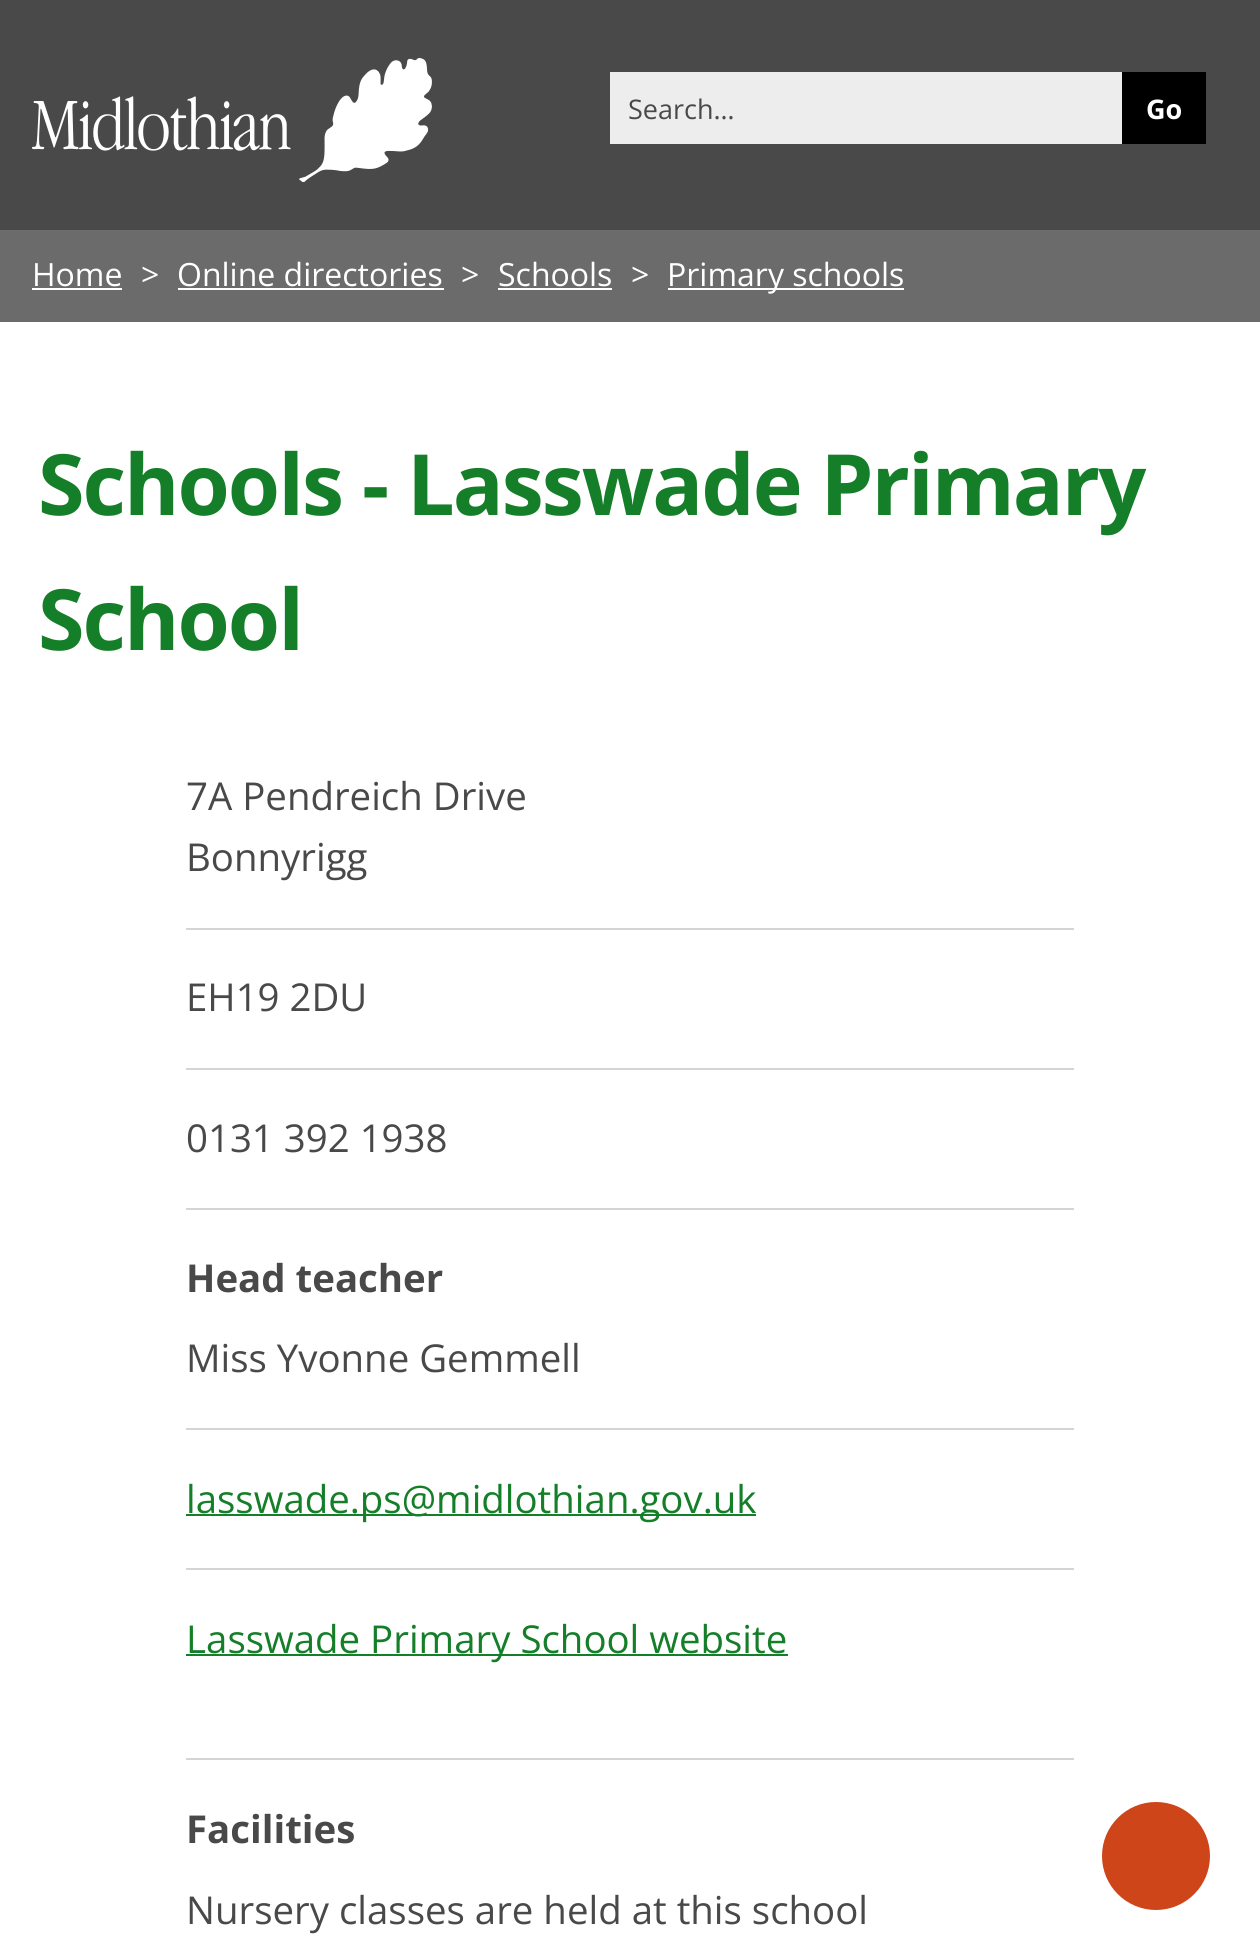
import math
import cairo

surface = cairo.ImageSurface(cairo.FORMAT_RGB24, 1260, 1954)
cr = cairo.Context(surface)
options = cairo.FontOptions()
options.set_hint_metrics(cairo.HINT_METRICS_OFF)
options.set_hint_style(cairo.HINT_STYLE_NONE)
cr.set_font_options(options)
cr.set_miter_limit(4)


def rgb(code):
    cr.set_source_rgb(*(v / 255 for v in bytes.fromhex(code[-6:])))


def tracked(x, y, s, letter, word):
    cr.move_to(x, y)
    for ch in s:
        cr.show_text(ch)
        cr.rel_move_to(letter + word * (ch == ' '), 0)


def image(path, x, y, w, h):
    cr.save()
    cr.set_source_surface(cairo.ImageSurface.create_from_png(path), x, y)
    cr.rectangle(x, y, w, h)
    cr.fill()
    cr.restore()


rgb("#494949")
cr.paint()
image("img/1.png", 32, 58, 400, 124)
for x, y, w, h, color in [
    (610, 72, 512, 72, "#ededed"),
    (1122, 72, 84, 72, "#000000"),
    (0, 230, 1260, 92, "#6c6b6b"),
    (32, 288, 90, 2, "#ffffff"),
    (178, 288, 266, 2, "#ffffff"),
    (498, 288, 114, 2, "#ffffff"),
    (668, 288, 236, 2, "#ffffff"),
    (0, 322, 1260, 1632, "#ffffff"),
    (186, 928, 888, 2, "#d5d5d5"),
    (186, 1068, 888, 2, "#d5d5d5"),
    (186, 1208, 888, 2, "#d5d5d5"),
    (186, 1428, 888, 2, "#d5d5d5"),
    (186, 1568, 888, 2, "#d5d5d5"),
    (186, 1514, 570, 2, "#157e28"),
    (186, 1758, 888, 2, "#d5d5d5"),
    (186, 1654, 602, 2, "#157e28"),
]:
    rgb(color)
    cr.rectangle(x, y, w, h)
    cr.fill()
rgb("#cd4518")
cr.arc(1156, 1856, 54, 0, 2 * math.pi)
cr.fill()
cr.select_font_face("Open Sans")
cr.set_font_size(27)
rgb("#494949")
cr.move_to(628, 119)
cr.show_text("Search…")
cr.select_font_face("Open Sans", cairo.FONT_SLANT_NORMAL, cairo.FONT_WEIGHT_BOLD)
rgb("#ffffff")
cr.move_to(1146, 119)
cr.show_text("Go")
cr.select_font_face("Open Sans")
cr.set_font_size(32)
for x, y, s in [
    (32, 286, "Home"),
    (141, 286, ">"),
    (177, 286, "Online directories"),
    (461, 286, ">"),
    (498, 286, "Schools"),
    (631, 286, ">"),
    (667, 286, "Primary schools"),
]:
    cr.move_to(x, y)
    cr.show_text(s)
cr.select_font_face("Open Sans", cairo.FONT_SLANT_NORMAL, cairo.FONT_WEIGHT_BOLD)
cr.set_font_size(84.5)
rgb("#157e28")
tracked(38, 515, "Schools - Lasswade Primary", -2, 0)
tracked(38, 650, "School", -2, 0)
cr.select_font_face("Open Sans")
cr.set_font_size(38.4)
rgb("#494949")
for x, y, s in [
    (186, 810, "7A Pendreich Drive"),
    (186, 871, "Bonnyrigg"),
    (186, 1011, "EH19 2DU"),
    (186, 1152, "0131 392 1938"),
]:
    cr.move_to(x, y)
    cr.show_text(s)
cr.select_font_face("Open Sans", cairo.FONT_SLANT_NORMAL, cairo.FONT_WEIGHT_BOLD)
cr.move_to(186, 1292)
cr.show_text("Head teacher")
cr.select_font_face("Open Sans")
cr.move_to(186, 1372)
cr.show_text("Miss Yvonne Gemmell")
rgb("#157e28")
cr.move_to(186, 1513)
cr.show_text("lasswade.ps@midlothian.gov.uk")
cr.move_to(186, 1653)
cr.show_text("Lasswade Primary School website")
cr.select_font_face("Open Sans", cairo.FONT_SLANT_NORMAL, cairo.FONT_WEIGHT_BOLD)
rgb("#494949")
cr.move_to(186, 1843)
cr.show_text("Facilities")
cr.select_font_face("Open Sans")
cr.move_to(186, 1924)
cr.show_text("Nursery classes are held at this school")
surface.write_to_png("page.png")
